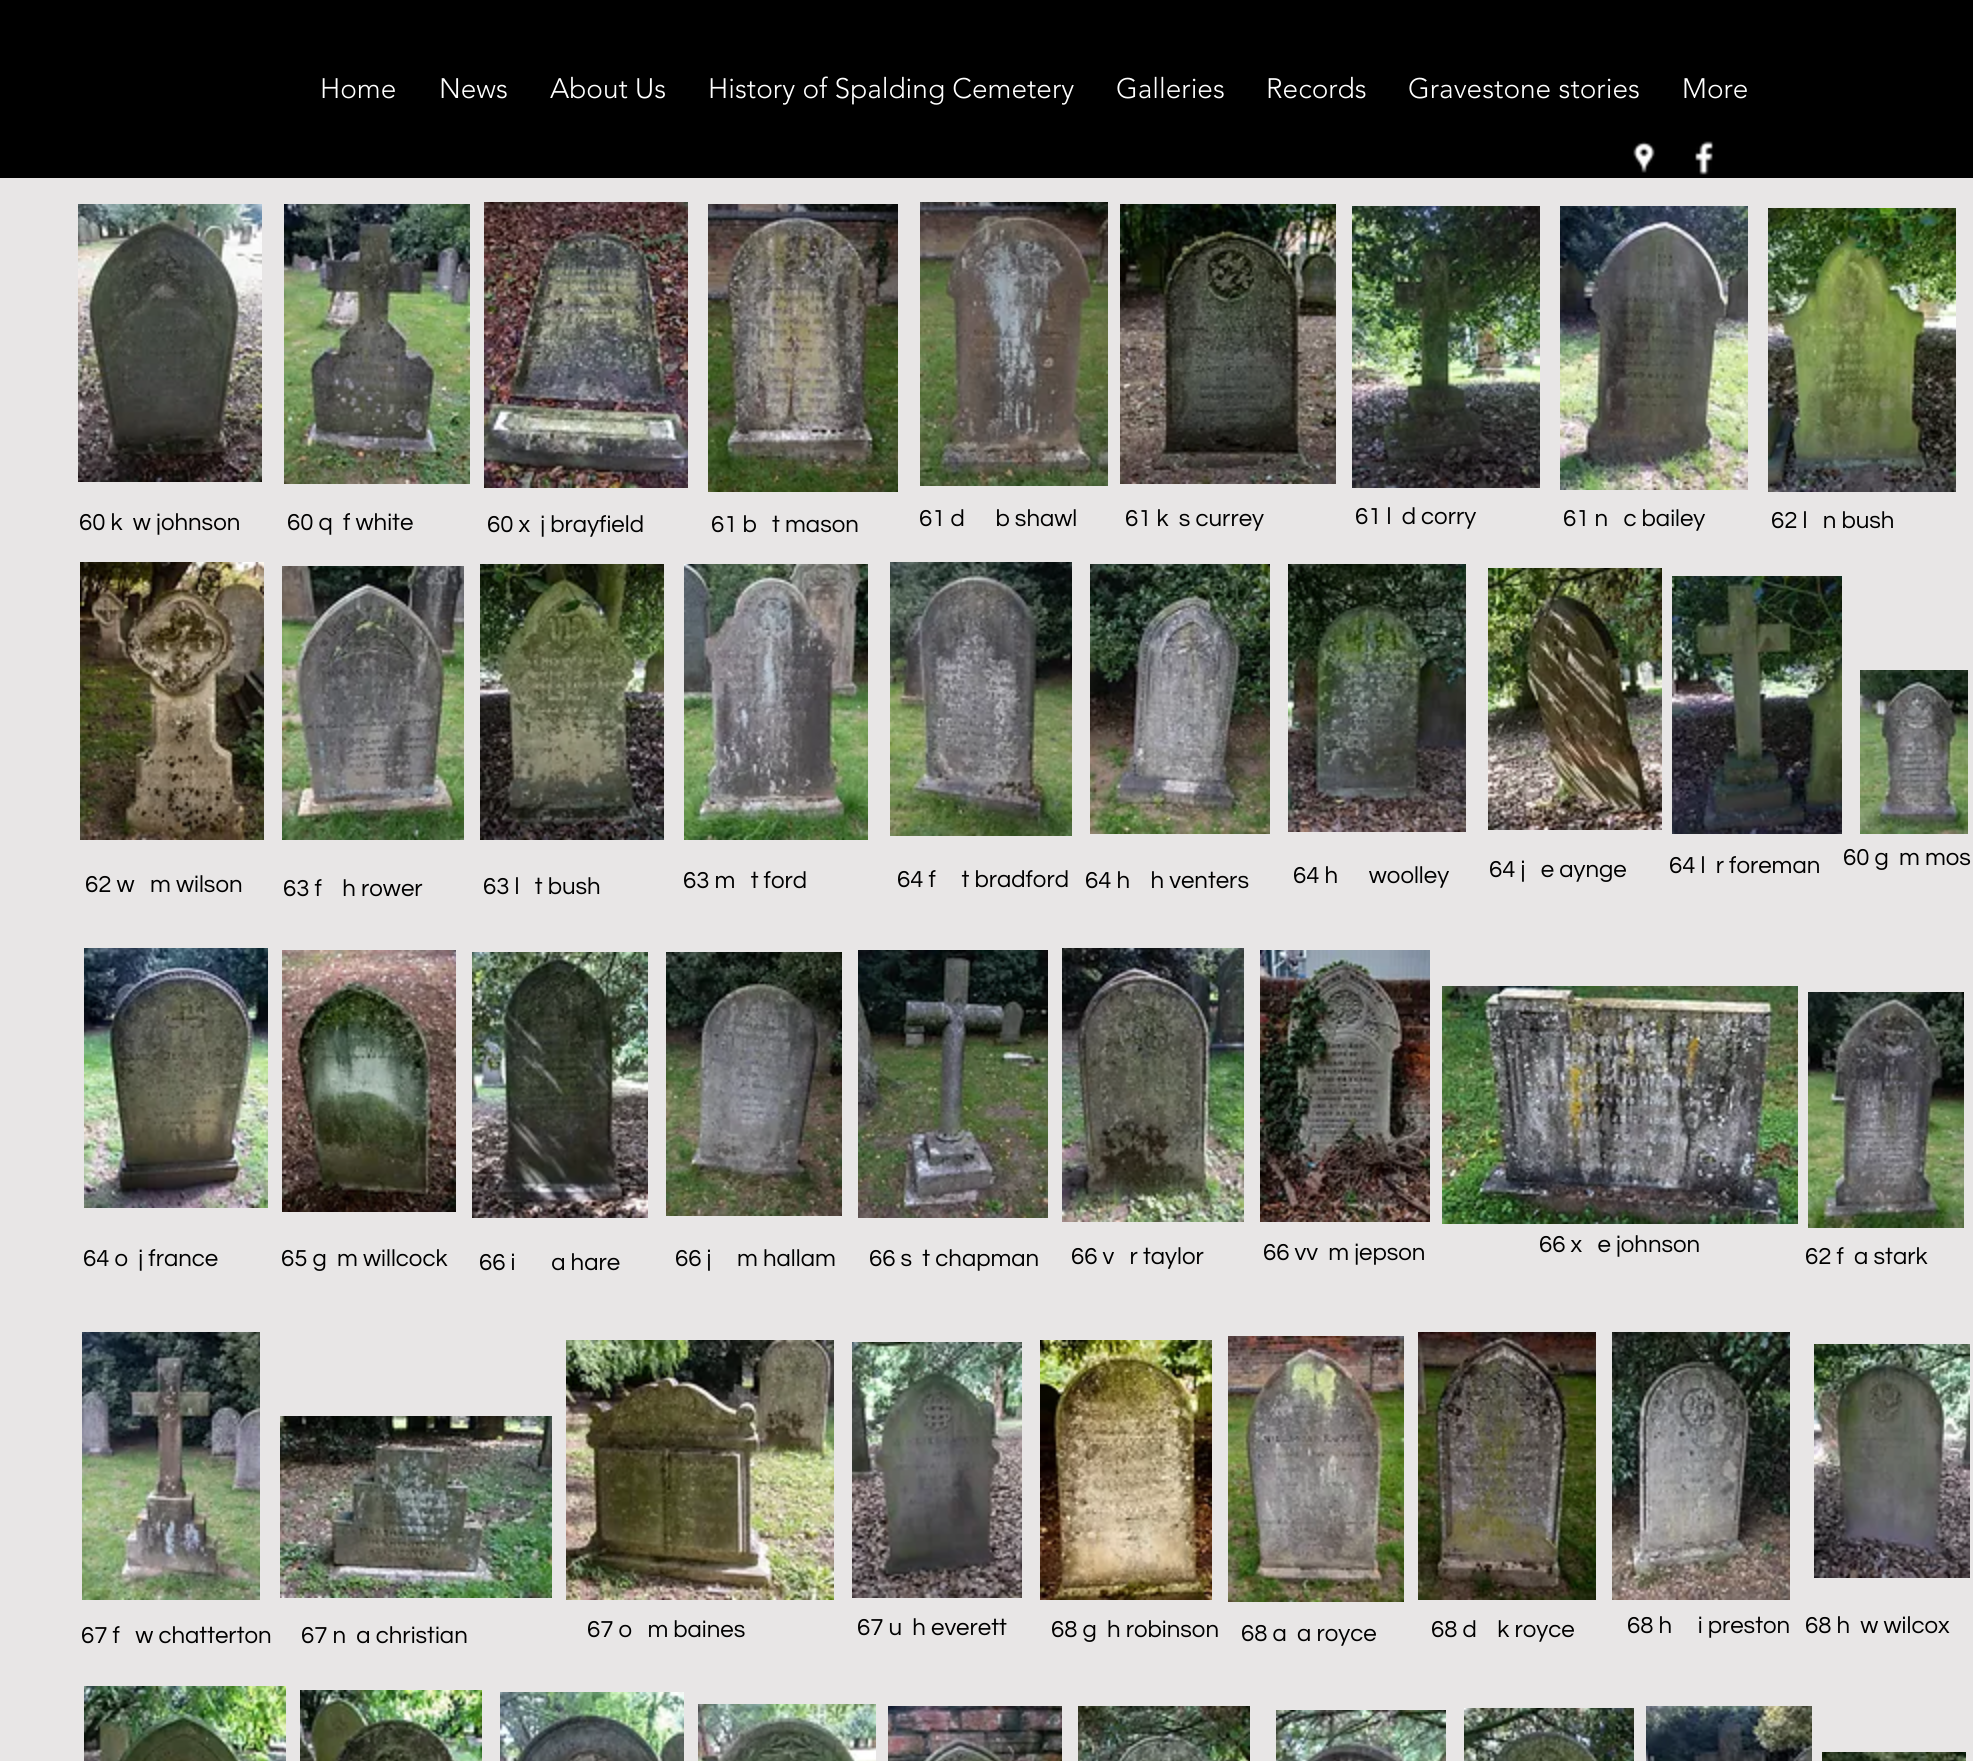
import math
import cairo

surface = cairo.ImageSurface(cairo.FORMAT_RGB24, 1973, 1761)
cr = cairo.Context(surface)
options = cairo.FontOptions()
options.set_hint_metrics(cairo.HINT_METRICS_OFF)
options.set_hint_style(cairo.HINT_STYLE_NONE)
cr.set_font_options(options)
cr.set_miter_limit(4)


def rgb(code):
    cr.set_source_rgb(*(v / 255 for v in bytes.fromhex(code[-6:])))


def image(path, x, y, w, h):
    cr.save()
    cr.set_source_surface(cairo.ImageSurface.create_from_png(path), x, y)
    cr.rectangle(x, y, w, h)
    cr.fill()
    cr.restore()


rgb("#e8e6e6")
cr.paint()
rgb("#000000")
cr.rectangle(0, 0, 1973, 178)
cr.fill()
image("img/1.png", 1633, 141, 22, 32)
image("img/2.png", 1695, 141, 19, 34)
image("img/3.png", 78, 204, 184, 278)
image("img/4.png", 284, 204, 186, 280)
image("img/5.png", 484, 202, 204, 286)
image("img/6.png", 708, 204, 190, 288)
image("img/7.png", 920, 202, 188, 284)
image("img/8.png", 1120, 204, 216, 280)
image("img/9.png", 1352, 206, 188, 282)
image("img/10.png", 1560, 206, 188, 284)
image("img/11.png", 1768, 208, 188, 284)
image("img/12.png", 80, 562, 184, 278)
image("img/13.png", 282, 566, 182, 274)
image("img/14.png", 480, 564, 184, 276)
image("img/15.png", 684, 564, 184, 276)
image("img/16.png", 890, 562, 182, 274)
image("img/17.png", 1090, 564, 180, 270)
image("img/18.png", 1288, 564, 178, 268)
image("img/19.png", 1488, 568, 174, 262)
image("img/20.png", 1672, 576, 170, 258)
image("img/21.png", 1860, 670, 108, 164)
image("img/22.png", 84, 948, 184, 260)
image("img/23.png", 282, 950, 174, 262)
image("img/24.png", 472, 952, 176, 266)
image("img/25.png", 666, 952, 176, 264)
image("img/26.png", 858, 950, 190, 268)
image("img/27.png", 1062, 948, 182, 274)
image("img/28.png", 1260, 950, 170, 272)
image("img/29.png", 1442, 986, 356, 238)
image("img/30.png", 1808, 992, 156, 236)
image("img/31.png", 82, 1332, 178, 268)
image("img/32.png", 280, 1416, 272, 182)
image("img/33.png", 566, 1340, 268, 260)
image("img/34.png", 852, 1342, 170, 256)
image("img/35.png", 1040, 1340, 172, 260)
image("img/36.png", 1228, 1336, 176, 266)
image("img/37.png", 1418, 1332, 178, 268)
image("img/38.png", 1612, 1332, 178, 268)
image("img/39.png", 1814, 1344, 156, 234)
image("img/40.png", 84, 1686, 202, 75)
image("img/41.png", 300, 1690, 182, 71)
image("img/42.png", 500, 1692, 184, 69)
image("img/43.png", 698, 1704, 178, 57)
image("img/44.png", 888, 1706, 174, 55)
image("img/45.png", 1078, 1706, 172, 55)
image("img/46.png", 1276, 1710, 170, 51)
image("img/47.png", 1464, 1708, 170, 53)
image("img/48.png", 1646, 1706, 166, 55)
image("img/49.png", 1822, 1752, 144, 9)
cr.select_font_face("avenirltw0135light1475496 Light")
cr.set_font_size(28)
rgb("#ffffff")
for x, y, s in [
    (320, 98, "Home"),
    (439, 98, "News"),
    (550, 98, "About Us"),
    (708, 98, "History of Spalding Cemetery"),
    (1116, 98, "Galleries"),
    (1266, 98, "Records"),
    (1408, 98, "Gravestone stories"),
    (1682, 98, "More"),
]:
    cr.move_to(x, y)
    cr.show_text(s)
cr.select_font_face("Questrial")
cr.set_font_size(24)
rgb("#000000")
for x, y, s in [
    (79, 530, "60 k  w johnson"),
    (287, 530, "60 q  f white"),
    (487, 532, "60 x  j brayfield"),
    (711, 532, "61 b   t mason"),
    (919, 526, "61 d      b shawl"),
    (1125, 526, "61 k  s currey"),
    (1355, 524, "61 l  d corry"),
    (1563, 526, "61 n   c bailey"),
    (1771, 528, "62 l   n bush"),
    (85, 892, "62 w   m wilson"),
    (283, 896, "63 f    h rower"),
    (483, 894, "63 l   t bush"),
    (683, 888, "63 m   t ford"),
    (897, 887, "64 f     t bradford"),
    (1085, 888, "64 h    h venters"),
    (1293, 883, "64 h      woolley"),
    (1489, 877, "64 j   e aynge"),
    (1669, 873, "64 l  r foreman"),
    (1843, 865, "60 g  m mos"),
    (83, 1266, "64 o  j france"),
    (281, 1266, "65 g  m willcock"),
    (479, 1270, "66 i       a hare"),
    (675, 1266, "66 j     m hallam"),
    (869, 1266, "66 s  t chapman"),
    (1071, 1264, "66 v   r taylor"),
    (1263, 1260, "66 vv  m jepson"),
    (1539, 1252, "66 x   e johnson"),
    (1805, 1264, "62 f  a stark"),
    (81, 1643, "67 f   w chatterton"),
    (301, 1643, "67 n  a christian"),
    (587, 1637, "67 o   m baines"),
    (857, 1635, "67 u  h everett"),
    (1051, 1637, "68 g  h robinson"),
    (1241, 1641, "68 a  a royce"),
    (1431, 1637, "68 d    k royce"),
    (1627, 1633, "68 h     i preston"),
    (1805, 1633, "68 h  w wilcox"),
]:
    cr.move_to(x, y)
    cr.show_text(s)
surface.write_to_png("page.png")
